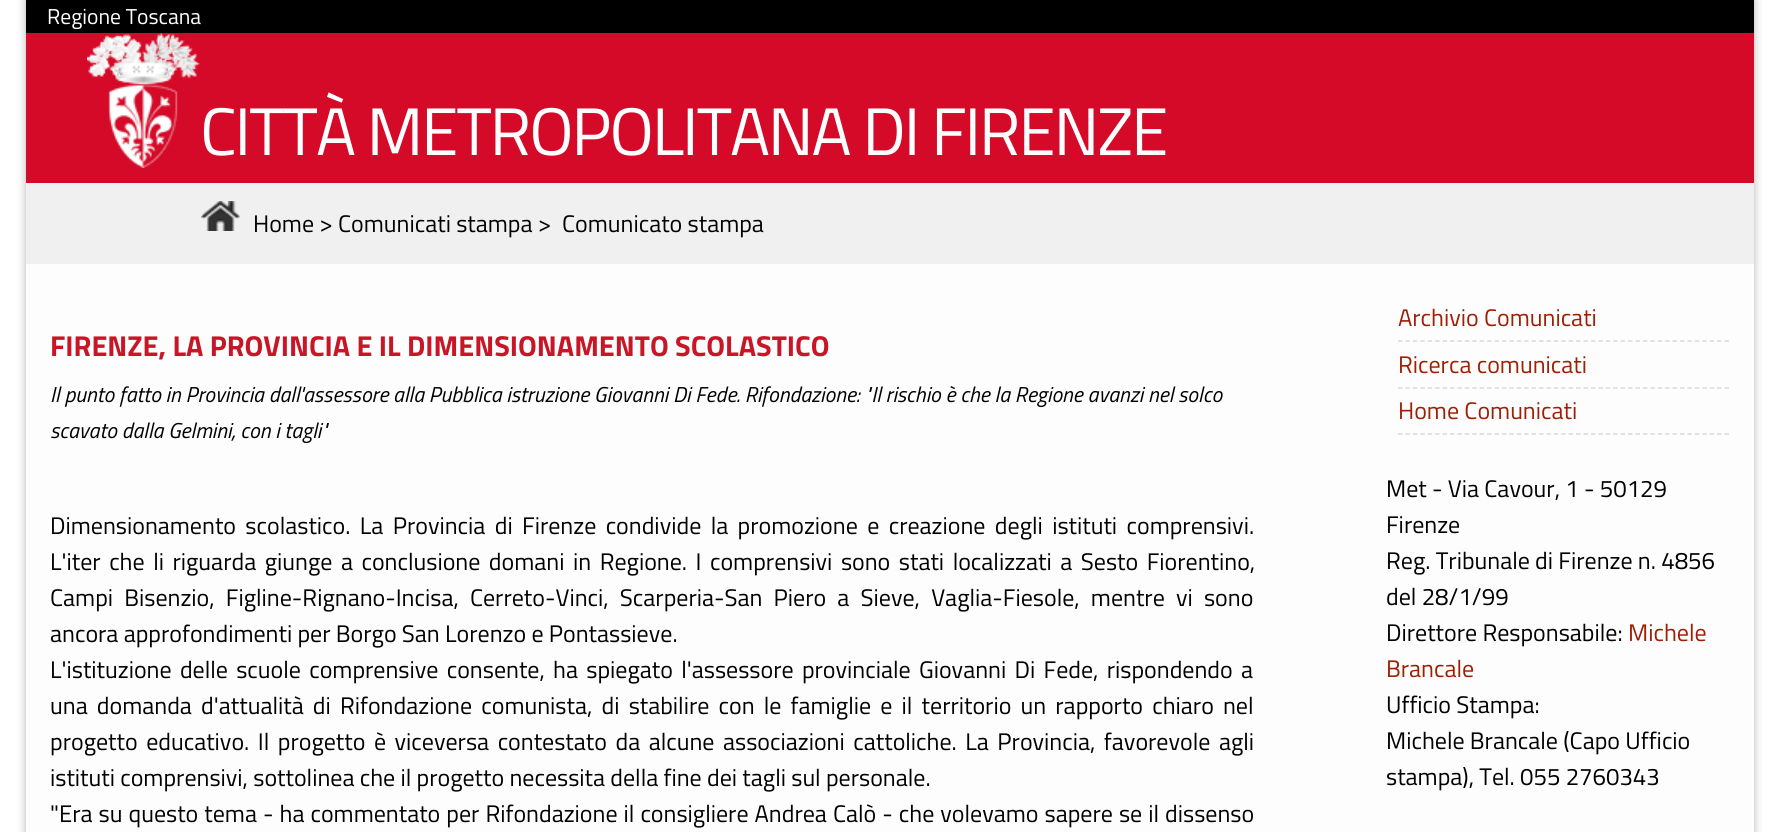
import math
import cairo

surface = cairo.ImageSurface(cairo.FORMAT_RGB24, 1779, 832)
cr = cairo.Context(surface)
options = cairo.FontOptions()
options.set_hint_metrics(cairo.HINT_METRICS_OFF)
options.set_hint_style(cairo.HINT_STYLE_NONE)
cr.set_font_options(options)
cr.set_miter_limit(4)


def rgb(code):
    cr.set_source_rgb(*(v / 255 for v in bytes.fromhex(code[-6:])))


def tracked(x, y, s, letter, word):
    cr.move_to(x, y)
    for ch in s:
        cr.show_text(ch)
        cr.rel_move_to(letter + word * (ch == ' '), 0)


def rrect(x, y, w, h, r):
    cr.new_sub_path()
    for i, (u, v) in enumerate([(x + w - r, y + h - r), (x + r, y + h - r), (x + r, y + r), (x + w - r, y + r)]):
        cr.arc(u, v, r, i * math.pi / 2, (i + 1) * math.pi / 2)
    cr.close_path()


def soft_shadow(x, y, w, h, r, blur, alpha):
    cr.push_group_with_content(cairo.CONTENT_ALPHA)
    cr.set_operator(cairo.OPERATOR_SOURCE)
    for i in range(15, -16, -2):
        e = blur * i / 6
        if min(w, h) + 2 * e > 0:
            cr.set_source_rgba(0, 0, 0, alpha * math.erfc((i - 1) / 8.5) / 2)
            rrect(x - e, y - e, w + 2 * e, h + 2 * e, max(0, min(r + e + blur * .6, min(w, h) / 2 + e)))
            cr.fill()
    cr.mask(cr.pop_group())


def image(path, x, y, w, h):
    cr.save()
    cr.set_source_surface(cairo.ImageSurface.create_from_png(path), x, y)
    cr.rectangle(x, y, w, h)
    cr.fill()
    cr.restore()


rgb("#ffffff")
cr.paint()
rgb("#b4b4b4")
soft_shadow(26, 0, 1728, 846, 0, 4.5, 1)
for x, y, w, h, color in [
    (26, 264, 1728, 568, "#fdfdfd"),
    (26, 33, 1728, 150, "#d50a28"),
    (26, 0, 1728, 33, "#000000"),
]:
    rgb(color)
    cr.rectangle(x, y, w, h)
    cr.fill()
image("img/1.png", 87, 33, 113, 135)
rgb("#f0f0f0")
cr.rectangle(26, 183, 1728, 81)
cr.fill()
image("img/2.png", 201, 201, 39, 30)
cr.new_path()
cr.move_to(1398, 341)
cr.line_to(1729.5, 341)
rgb("#d9d9d9")
cr.set_line_width(1.5)
cr.set_dash([4.5, 2.92])
cr.stroke()
cr.new_path()
cr.move_to(1398, 388)
cr.line_to(1729.5, 388)
cr.stroke()
cr.new_path()
cr.move_to(1398, 434)
cr.line_to(1729.5, 434)
cr.stroke()
cr.select_font_face("Titillium Web")
cr.set_font_size(21.6)
rgb("#ffffff")
cr.move_to(47, 24)
cr.show_text("Regione Toscana")
cr.set_font_size(67.25)
tracked(200, 155, "CITTÀ METROPOLITANA DI FIRENZE", -2, 0)
cr.set_font_size(24)
rgb("#000000")
cr.move_to(253, 232)
cr.show_text("Home > Comunicati stampa >")
cr.move_to(562, 232)
cr.show_text("Comunicato stampa")
cr.select_font_face("Titillium Web", cairo.FONT_SLANT_NORMAL, cairo.FONT_WEIGHT_BOLD)
cr.set_font_size(28.8)
rgb("#c81627")
cr.move_to(50, 356)
cr.show_text("FIRENZE, LA PROVINCIA E IL DIMENSIONAMENTO SCOLASTICO")
cr.select_font_face("Titillium Web", cairo.FONT_SLANT_ITALIC)
cr.set_font_size(21.6)
rgb("#000000")
cr.move_to(50, 402)
cr.show_text("Il punto fatto in Provincia dall'assessore alla Pubblica istruzione Giovanni Di Fede. Rifondazione: \"Il rischio è che la Regione avanzi nel solco")
cr.move_to(50, 438)
cr.show_text("scavato dalla Gelmini, con i tagli\"")
cr.select_font_face("Titillium Web")
cr.set_font_size(24)
tracked(50, 534, "Dimensionamento scolastico. La Provincia di Firenze condivide la promozione e creazione degli istituti comprensivi.", 0, 4.1)
tracked(50, 570, "L'iter che li riguarda giunge a conclusione domani in Regione. I comprensivi sono stati localizzati a Sesto Fiorentino,", 0, 3.25)
tracked(50, 606, "Campi Bisenzio, Figline-Rignano-Incisa, Cerreto-Vinci, Scarperia-San Piero a Sieve, Vaglia-Fiesole, mentre vi sono", 0, 5.9)
cr.move_to(50, 642)
cr.show_text("ancora approfondimenti per Borgo San Lorenzo e Pontassieve.")
tracked(50, 678, "L'istituzione delle scuole comprensive consente, ha spiegato l'assessore provinciale Giovanni Di Fede, rispondendo a", 0, 3)
tracked(50, 714, "una domanda d'attualità di Rifondazione comunista, di stabilire con le famiglie e il territorio un rapporto chiaro nel", 0, 3.9)
tracked(50, 750, "progetto educativo. Il progetto è viceversa contestato da alcune associazioni cattoliche. La Provincia, favorevole agli", 0, 3.25)
cr.move_to(50, 786)
cr.show_text("istituti comprensivi, sottolinea che il progetto necessita della fine dei tagli sul personale.")
tracked(50, 822, "\"Era su questo tema - ha commentato per Rifondazione il consigliere Andrea Calò - che volevamo sapere se il dissenso", 0, 0.75)
rgb("#9e1f03")
for x, y, s in [
    (1398, 326, "Archivio Comunicati"),
    (1398, 373, "Ricerca comunicati"),
    (1398, 419, "Home Comunicati"),
]:
    cr.move_to(x, y)
    cr.show_text(s)
rgb("#000000")
for x, y, s in [
    (1386, 497, "Met - Via Cavour, 1 - 50129"),
    (1386, 533, "Firenze"),
    (1386, 569, "Reg. Tribunale di Firenze n. 4856"),
    (1386, 605, "del 28/1/99"),
    (1386, 641, "Direttore Responsabile:"),
]:
    cr.move_to(x, y)
    cr.show_text(s)
rgb("#9e1f03")
cr.move_to(1628, 641)
cr.show_text("Michele")
cr.move_to(1386, 677)
cr.show_text("Brancale")
rgb("#000000")
for x, y, s in [
    (1386, 713, "Ufficio Stampa:"),
    (1386, 749, "Michele Brancale (Capo Ufficio"),
    (1386, 785, "stampa), Tel. 055 2760343"),
]:
    cr.move_to(x, y)
    cr.show_text(s)
surface.write_to_png("page.png")
